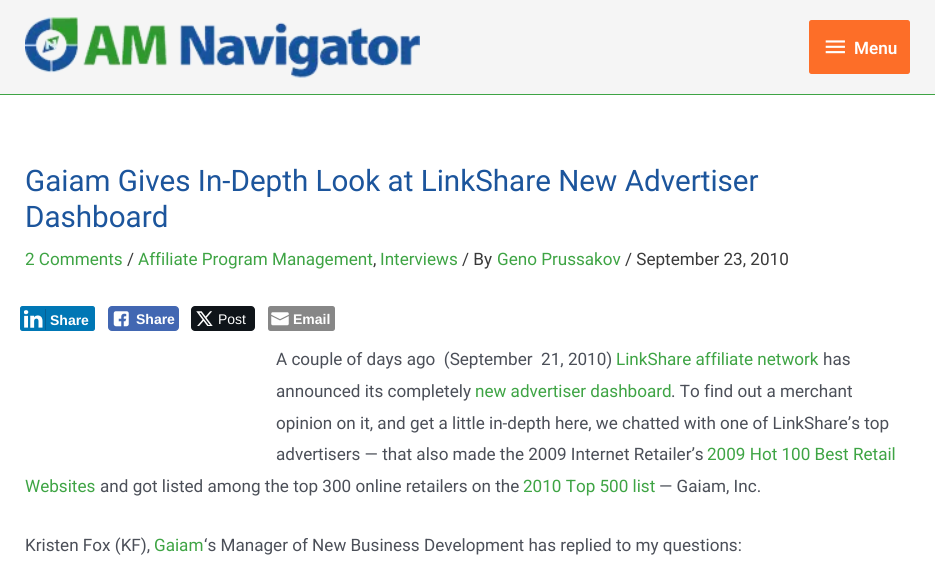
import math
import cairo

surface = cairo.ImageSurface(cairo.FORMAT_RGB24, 935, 584)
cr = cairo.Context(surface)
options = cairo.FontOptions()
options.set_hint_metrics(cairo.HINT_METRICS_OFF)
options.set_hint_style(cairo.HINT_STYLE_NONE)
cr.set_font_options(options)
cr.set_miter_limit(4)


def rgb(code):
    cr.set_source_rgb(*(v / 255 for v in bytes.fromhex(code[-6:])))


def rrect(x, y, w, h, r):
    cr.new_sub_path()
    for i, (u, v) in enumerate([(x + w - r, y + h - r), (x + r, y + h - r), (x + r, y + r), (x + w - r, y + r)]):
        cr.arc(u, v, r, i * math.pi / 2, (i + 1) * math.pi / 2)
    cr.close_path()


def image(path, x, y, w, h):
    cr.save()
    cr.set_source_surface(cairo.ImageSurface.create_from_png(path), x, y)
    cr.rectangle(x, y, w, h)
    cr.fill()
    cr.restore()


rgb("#ffffff")
cr.paint()
rgb("#f5f5f5")
cr.rectangle(0, 0, 935, 94)
cr.fill()
rgb("#3ea444")
cr.rectangle(0, 94, 935, 1)
cr.fill()
image("img/1.png", 25, 17, 395, 61)
rgb("#fd6e28")
rrect(809, 20, 101, 54, 2.5)
cr.fill()
image("img/2.png", 825, 40, 20, 14)
rgb("#0077b5")
rrect(20.5, 306.5, 74, 24, 2)
cr.fill_preserve()
cr.set_line_width(1)
cr.stroke()
rgb("#066094")
cr.rectangle(45, 309, 1, 21)
cr.fill()
image("img/3.png", 24, 310, 19, 18)
rgb("#4267b2")
rrect(108.5, 306.5, 70, 24, 3.5)
cr.fill_preserve()
cr.stroke()
image("img/4.png", 113, 311, 16, 16)
rgb("#0f1419")
rrect(191, 306, 64, 25, 4)
cr.fill()
image("img/5.png", 196, 311, 17, 15)
rgb("#878787")
rrect(268, 306, 67, 25, 2.5)
cr.fill()
image("img/6.png", 271, 312, 18, 14)
cr.select_font_face("Roboto SemiBold")
cr.set_font_size(17.1)
rgb("#ffffff")
cr.move_to(854, 54)
cr.show_text("Menu")
cr.select_font_face("Roboto")
cr.set_font_size(29.6)
rgb("#1c559c")
cr.move_to(25, 191)
cr.show_text("Gaiam Gives In-Depth Look at LinkShare New Advertiser")
cr.move_to(25, 227)
cr.show_text("Dashboard")
cr.set_font_size(17.1)
rgb("#3ea444")
cr.move_to(25, 265)
cr.show_text("2 Comments")
rgb("#3a3a3a")
cr.move_to(127, 265)
cr.show_text("/")
rgb("#3ea444")
cr.move_to(138, 265)
cr.show_text("Affiliate Program Management")
rgb("#3a3a3a")
cr.move_to(373, 265)
cr.show_text(",")
rgb("#3ea444")
cr.move_to(380, 265)
cr.show_text("Interviews")
rgb("#3a3a3a")
cr.move_to(462, 265)
cr.show_text("/ By")
rgb("#3ea444")
cr.move_to(497, 265)
cr.show_text("Geno Prussakov")
rgb("#3a3a3a")
cr.move_to(625, 265)
cr.show_text("/ September 23, 2010")
cr.select_font_face("Liberation Sans", cairo.FONT_SLANT_NORMAL, cairo.FONT_WEIGHT_BOLD)
cr.set_font_size(14)
rgb("#ffffff")
cr.move_to(50, 325)
cr.show_text("Share")
cr.move_to(136, 324)
cr.show_text("Share")
cr.select_font_face("Liberation Sans")
cr.move_to(218, 324)
cr.show_text("Post")
cr.select_font_face("Liberation Sans", cairo.FONT_SLANT_NORMAL, cairo.FONT_WEIGHT_BOLD)
cr.move_to(293, 324)
cr.show_text("Email")
cr.select_font_face("Roboto")
cr.set_font_size(17.1)
rgb("#4b4f58")
cr.move_to(276, 365)
cr.show_text("A couple of days ago  (September  21, 2010)")
rgb("#3ea444")
cr.move_to(616, 365)
cr.show_text("LinkShare affiliate network")
rgb("#4b4f58")
cr.move_to(823, 365)
cr.show_text("has")
cr.move_to(276, 397)
cr.show_text("announced its completely")
rgb("#3ea444")
cr.move_to(475, 397)
cr.show_text("new advertiser dashboard")
rgb("#4b4f58")
for x, y, s in [
    (671, 397, ". To find out a merchant"),
    (276, 429, "opinion on it, and get a little in-depth here, we chatted with one of LinkShare’s top"),
    (276, 460, "advertisers — that also made the 2009 Internet Retailer’s"),
]:
    cr.move_to(x, y)
    cr.show_text(s)
rgb("#3ea444")
cr.move_to(707, 460)
cr.show_text("2009 Hot 100 Best Retail")
cr.move_to(25, 492)
cr.show_text("Websites")
rgb("#4b4f58")
cr.move_to(100, 492)
cr.show_text("and got listed among the top 300 online retailers on the")
rgb("#3ea444")
cr.move_to(523, 492)
cr.show_text("2010 Top 500 list")
rgb("#4b4f58")
cr.move_to(659, 492)
cr.show_text("— Gaiam, Inc.")
cr.move_to(25, 551)
cr.show_text("Kristen Fox (KF),")
rgb("#3ea444")
cr.move_to(154, 551)
cr.show_text("Gaiam")
rgb("#4b4f58")
cr.move_to(204, 551)
cr.show_text("‘s Manager of New Business Development has replied to my questions:")
surface.write_to_png("page.png")
